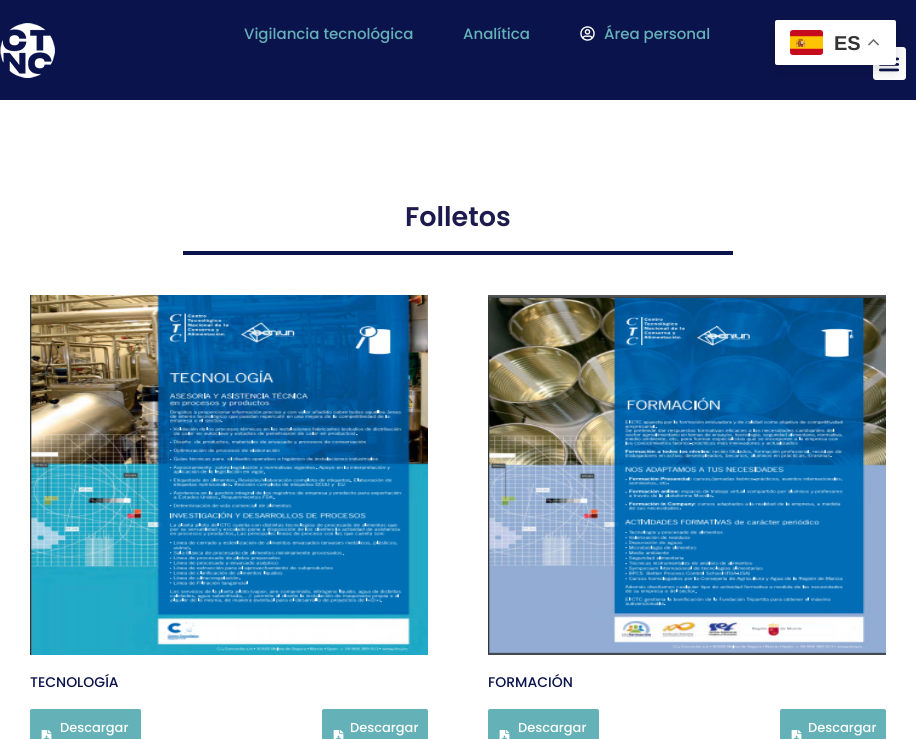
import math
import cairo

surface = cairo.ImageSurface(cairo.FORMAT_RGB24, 916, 739)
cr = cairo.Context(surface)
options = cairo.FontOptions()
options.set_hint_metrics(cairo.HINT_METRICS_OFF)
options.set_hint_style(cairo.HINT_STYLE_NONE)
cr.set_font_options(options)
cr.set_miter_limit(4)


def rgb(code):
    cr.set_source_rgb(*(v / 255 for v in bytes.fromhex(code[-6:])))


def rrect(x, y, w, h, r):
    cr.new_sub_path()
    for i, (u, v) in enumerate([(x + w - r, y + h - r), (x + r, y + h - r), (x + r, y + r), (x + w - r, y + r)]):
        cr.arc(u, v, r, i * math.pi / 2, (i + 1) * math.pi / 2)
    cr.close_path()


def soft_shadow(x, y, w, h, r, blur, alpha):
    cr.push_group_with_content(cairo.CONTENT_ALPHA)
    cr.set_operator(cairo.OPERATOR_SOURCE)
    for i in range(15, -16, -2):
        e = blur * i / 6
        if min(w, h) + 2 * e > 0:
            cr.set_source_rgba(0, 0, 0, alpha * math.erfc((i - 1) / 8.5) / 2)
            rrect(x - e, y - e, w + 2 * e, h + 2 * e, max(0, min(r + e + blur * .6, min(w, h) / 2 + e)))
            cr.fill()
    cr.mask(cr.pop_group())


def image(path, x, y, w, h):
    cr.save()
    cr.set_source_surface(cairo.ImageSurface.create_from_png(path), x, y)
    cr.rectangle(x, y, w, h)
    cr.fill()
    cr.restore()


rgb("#ffffff")
cr.paint()
rgb("#0b134c")
cr.rectangle(0, 0, 916, 100)
cr.fill()
image("img/1.png", 0, 23, 55, 55)
image("img/2.png", 580, 26, 15, 15)
rgb("#ffffff")
rrect(873, 47, 33, 33, 3)
cr.fill()
image("img/3.png", 879, 57, 21, 15)
rgb("#000000")
soft_shadow(775, 25, 121, 45, 2, 7.5, 0.15)
rgb("#ffffff")
rrect(775, 20, 121, 45, 2)
cr.fill()
image("img/4.png", 790, 30, 33, 25)
image("img/5.png", 868, 39, 11, 7)
rgb("#0b134c")
cr.rectangle(183, 251, 550, 4)
cr.fill()
image("img/6.png", 30, 295, 398, 360)
rgb("#64b1b8")
rrect(30, 709, 111, 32, 2)
cr.fill()
image("img/7.png", 41, 730, 11, 9)
rrect(322, 709, 106, 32, 2)
cr.fill()
image("img/7.png", 333, 730, 11, 9)
image("img/8.png", 488, 295, 398, 360)
rrect(488, 709, 111, 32, 2)
cr.fill()
image("img/7.png", 499, 730, 11, 9)
rrect(780, 709, 106, 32, 2)
cr.fill()
image("img/7.png", 791, 730, 11, 9)
cr.select_font_face("Poppins Medium")
cr.set_font_size(15)
for x, y, s in [
    (244, 39, "Vigilancia tecnológica"),
    (463, 39, "Analítica"),
    (604, 39, "Área personal"),
]:
    cr.move_to(x, y)
    cr.show_text(s)
cr.select_font_face("Liberation Sans", cairo.FONT_SLANT_NORMAL, cairo.FONT_WEIGHT_BOLD)
cr.set_font_size(20)
rgb("#333333")
cr.move_to(834, 50)
cr.show_text("ES")
cr.select_font_face("Poppins SemiBold")
cr.set_font_size(27)
rgb("#1d1a4e")
cr.move_to(405, 226)
cr.show_text("Folletos")
cr.select_font_face("Poppins Medium")
cr.set_font_size(14)
rgb("#0b134c")
cr.move_to(30, 687)
cr.show_text("TECNOLOGÍA")
cr.set_font_size(13)
rgb("#ffffff")
cr.move_to(60, 732)
cr.show_text("Descargar")
cr.move_to(350, 732)
cr.show_text("Descargar")
cr.set_font_size(14)
rgb("#0b134c")
cr.move_to(488, 687)
cr.show_text("FORMACIÓN")
cr.set_font_size(13)
rgb("#ffffff")
cr.move_to(518, 732)
cr.show_text("Descargar")
cr.move_to(808, 732)
cr.show_text("Descargar")
surface.write_to_png("page.png")
